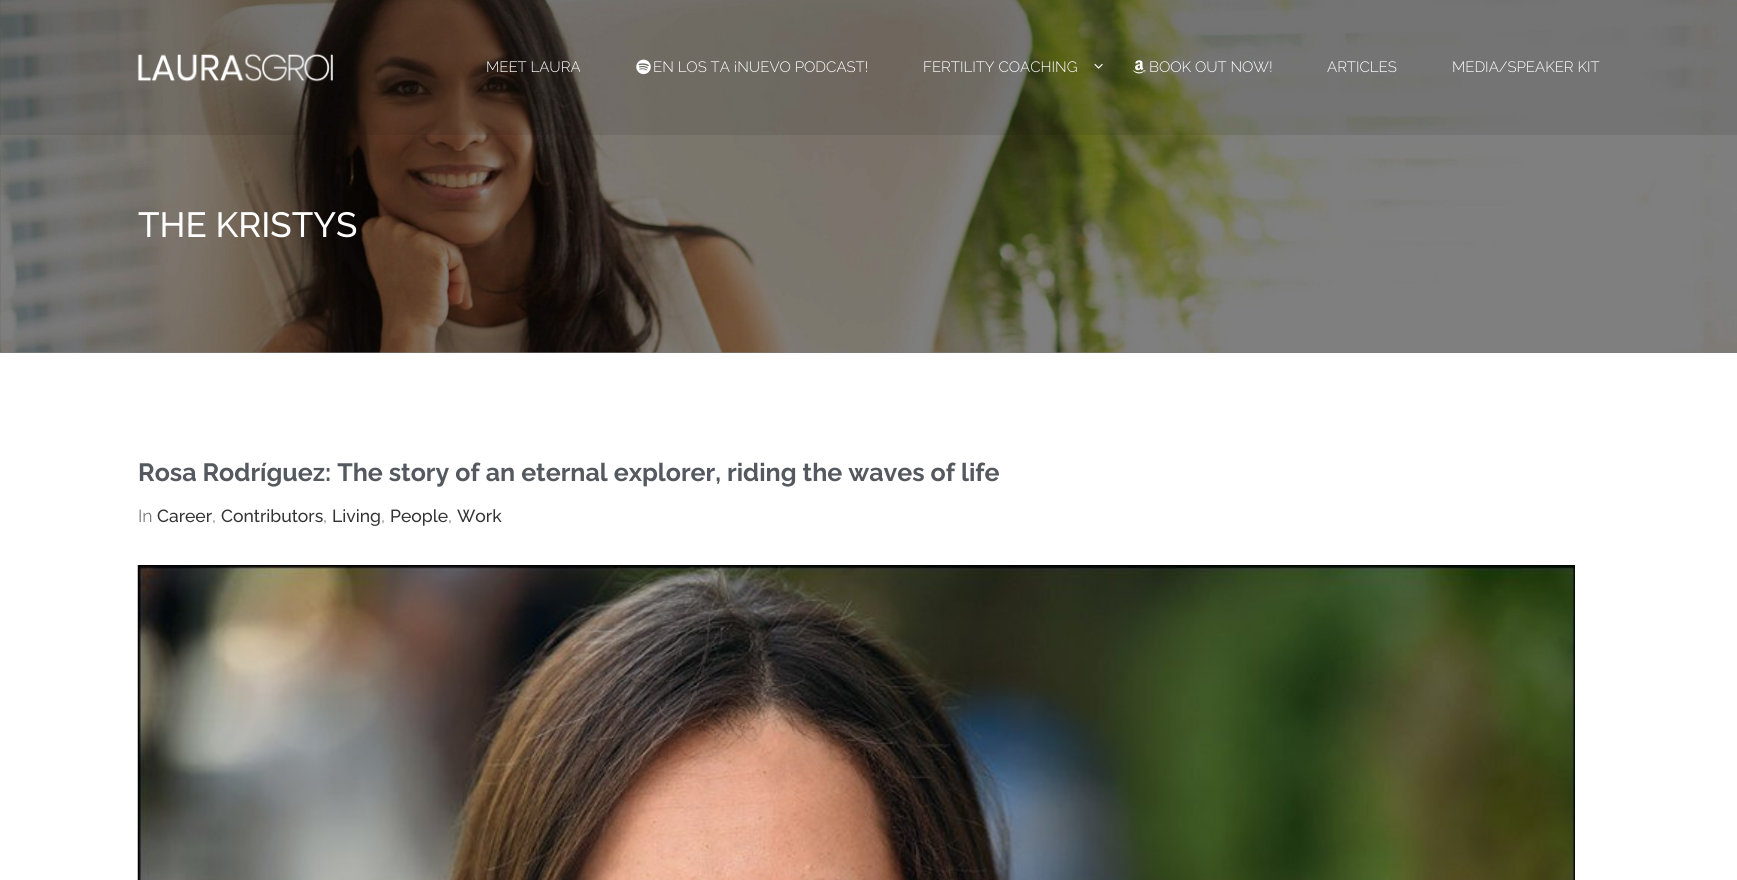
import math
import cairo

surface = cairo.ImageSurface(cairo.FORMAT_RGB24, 1737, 880)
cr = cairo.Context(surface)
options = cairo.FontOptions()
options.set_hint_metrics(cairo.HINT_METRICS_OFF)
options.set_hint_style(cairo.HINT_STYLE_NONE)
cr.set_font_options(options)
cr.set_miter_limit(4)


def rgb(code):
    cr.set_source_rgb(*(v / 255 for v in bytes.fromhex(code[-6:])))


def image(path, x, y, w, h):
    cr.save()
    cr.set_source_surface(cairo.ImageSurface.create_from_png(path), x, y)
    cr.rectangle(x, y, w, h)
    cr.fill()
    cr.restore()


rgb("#ffffff")
cr.paint()
rgb("#808080")
cr.rectangle(0, 352, 1737, 1)
cr.fill()
image("img/5.png", 0, 0, 1737, 353)
cr.set_source_rgba(0.067, 0.067, 0.067, 0.1)
cr.rectangle(0, 0, 1737, 135)
cr.fill()
image("img/1.png", 137, 53, 196, 29)
image("img/2.png", 636, 59, 15, 16)
image("img/3.png", 1094, 63, 9, 6)
image("img/4.png", 1132, 60, 14, 14)
image("img/6.png", 137, 565, 1438, 315)
cr.select_font_face("Raleway Light")
cr.set_font_size(15)
rgb("#ffffff")
for x, y, s in [
    (486, 72, "MEET LAURA"),
    (653, 72, "EN LOS TA ¡NUEVO PODCAST!"),
    (923, 72, "FERTILITY COACHING"),
    (1149, 72, "BOOK OUT NOW!"),
    (1327, 72, "ARTICLES"),
    (1452, 72, "MEDIA/SPEAKER KIT"),
]:
    cr.move_to(x, y)
    cr.show_text(s)
cr.select_font_face("Raleway Medium")
cr.set_font_size(35)
cr.move_to(138, 237)
cr.show_text("THE KRISTYS")
cr.select_font_face("Raleway", cairo.FONT_SLANT_NORMAL, cairo.FONT_WEIGHT_BOLD)
cr.set_font_size(25)
rgb("#54595f")
cr.move_to(138, 481)
cr.show_text("Rosa Rodríguez: The story of an eternal explorer, riding the waves of life")
cr.select_font_face("Raleway")
cr.set_font_size(17.5)
rgb("#7a7a7a")
cr.move_to(138, 522)
cr.show_text("In")
cr.select_font_face("Raleway Medium")
rgb("#333333")
cr.move_to(157, 522)
cr.show_text("Career")
cr.select_font_face("Raleway")
rgb("#7a7a7a")
cr.move_to(212, 522)
cr.show_text(",")
cr.select_font_face("Raleway Medium")
rgb("#333333")
cr.move_to(221, 522)
cr.show_text("Contributors")
cr.select_font_face("Raleway")
rgb("#7a7a7a")
cr.move_to(323, 522)
cr.show_text(",")
cr.select_font_face("Raleway Medium")
rgb("#333333")
cr.move_to(332, 522)
cr.show_text("Living")
cr.select_font_face("Raleway")
rgb("#7a7a7a")
cr.move_to(381, 522)
cr.show_text(",")
cr.select_font_face("Raleway Medium")
rgb("#333333")
cr.move_to(390, 522)
cr.show_text("People")
cr.select_font_face("Raleway")
rgb("#7a7a7a")
cr.move_to(448, 522)
cr.show_text(",")
cr.select_font_face("Raleway Medium")
rgb("#333333")
cr.move_to(457, 522)
cr.show_text("Work")
surface.write_to_png("page.png")
